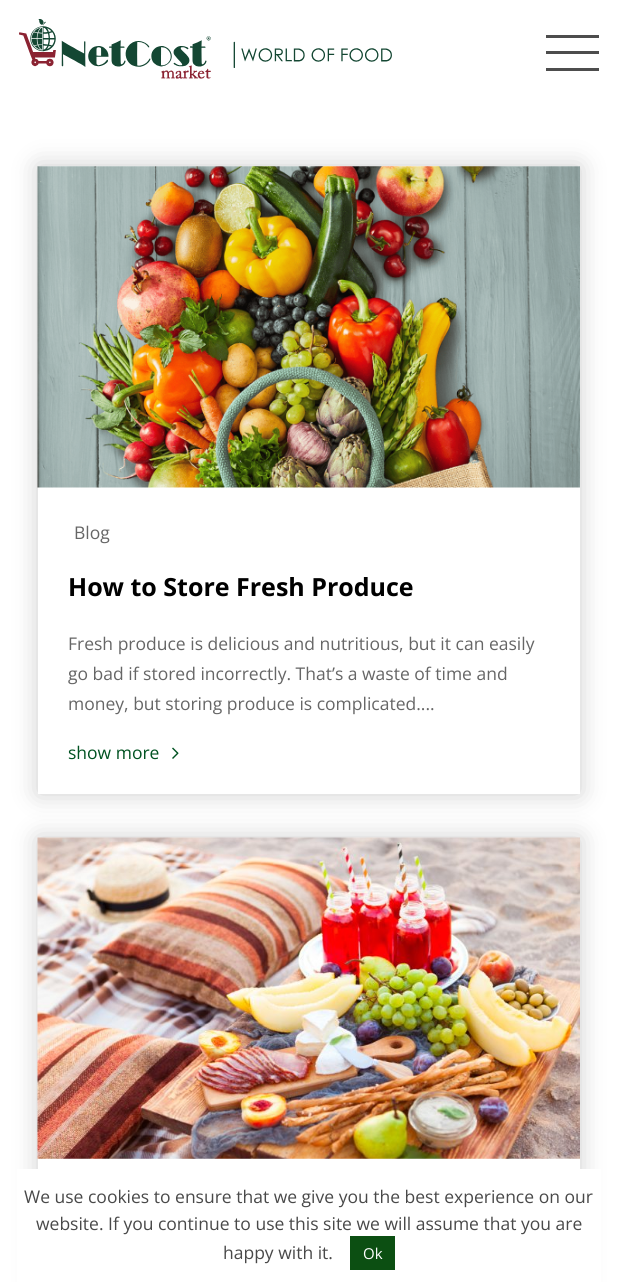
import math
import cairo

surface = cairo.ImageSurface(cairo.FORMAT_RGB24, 617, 1282)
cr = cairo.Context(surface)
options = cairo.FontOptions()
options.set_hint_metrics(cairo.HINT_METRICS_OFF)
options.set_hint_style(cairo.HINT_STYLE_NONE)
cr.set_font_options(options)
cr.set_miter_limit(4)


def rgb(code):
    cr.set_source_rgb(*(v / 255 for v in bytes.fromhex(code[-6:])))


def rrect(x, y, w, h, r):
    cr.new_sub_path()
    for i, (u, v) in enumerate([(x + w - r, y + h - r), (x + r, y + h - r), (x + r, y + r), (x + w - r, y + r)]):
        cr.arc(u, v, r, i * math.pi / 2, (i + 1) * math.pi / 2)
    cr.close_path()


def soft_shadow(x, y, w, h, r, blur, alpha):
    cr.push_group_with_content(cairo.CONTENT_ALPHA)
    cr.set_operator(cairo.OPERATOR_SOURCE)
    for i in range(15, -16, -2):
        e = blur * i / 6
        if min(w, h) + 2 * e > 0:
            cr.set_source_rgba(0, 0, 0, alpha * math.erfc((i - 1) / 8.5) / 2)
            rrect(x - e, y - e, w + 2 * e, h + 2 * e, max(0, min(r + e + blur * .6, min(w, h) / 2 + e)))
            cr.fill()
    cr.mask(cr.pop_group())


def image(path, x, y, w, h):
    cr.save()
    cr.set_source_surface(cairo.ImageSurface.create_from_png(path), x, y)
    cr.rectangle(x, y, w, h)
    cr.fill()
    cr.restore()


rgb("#ffffff")
cr.paint()
image("img/1.png", 19, 19, 373, 60)
for x, y, w, h, color in [
    (546, 35, 53, 3, "#4d4d4d"),
    (546, 68, 53, 3, "#4d4d4d"),
    (546, 51, 53, 3, "#4d4d4d"),
]:
    rgb(color)
    cr.rectangle(x, y, w, h)
    cr.fill()
rgb("#000000")
soft_shadow(38, 166, 542, 628, 0, 12.5, 0.2)
rgb("#ffffff")
cr.rectangle(38, 166, 542, 628)
cr.fill()
image("img/2.png", 37, 166, 543, 322)
rgb("#005221")
cr.new_path()
cr.move_to(173, 747.5)
cr.line_to(178.5, 753)
cr.line_to(177.5, 754)
cr.line_to(172, 748.5)
cr.close_path()
cr.fill()
cr.new_path()
cr.move_to(172, 758)
cr.line_to(177.5, 752.5)
cr.line_to(178.5, 753.5)
cr.line_to(173, 759)
cr.close_path()
cr.fill()
cr.save()
cr.set_fill_rule(cairo.FILL_RULE_EVEN_ODD)
cr.new_path()
cr.move_to(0, 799)
cr.line_to(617, 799)
cr.line_to(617, 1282)
cr.line_to(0, 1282)
cr.close_path()
cr.move_to(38, 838)
cr.line_to(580, 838)
cr.line_to(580, 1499)
cr.line_to(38, 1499)
cr.close_path()
cr.clip()
rgb("#000000")
soft_shadow(38, 838, 542, 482, 0, 12.5, 0.2)
cr.restore()
image("img/3.png", 37, 837, 543, 322)
rgb("#ffffff")
cr.rectangle(17, 1169, 584, 113)
cr.fill()
rgb("#0c4f12")
cr.rectangle(350, 1236, 45, 34)
cr.fill()
cr.select_font_face("Open Sans")
cr.set_font_size(17.5)
rgb("#666666")
cr.move_to(74, 539)
cr.show_text("Blog")
cr.select_font_face("Open Sans", cairo.FONT_SLANT_NORMAL, cairo.FONT_WEIGHT_BOLD)
cr.set_font_size(25)
rgb("#000000")
cr.move_to(68, 596)
cr.show_text("How to Store Fresh Produce")
cr.select_font_face("Open Sans")
cr.set_font_size(17.5)
rgb("#666666")
for x, y, s in [
    (68, 650, "Fresh produce is delicious and nutritious, but it can easily"),
    (68, 680, "go bad if stored incorrectly. That’s a waste of time and"),
    (68, 710, "money, but storing produce is complicated...."),
]:
    cr.move_to(x, y)
    cr.show_text(s)
rgb("#005221")
cr.move_to(68, 759)
cr.show_text("show more")
rgb("#494949")
for x, y, s in [
    (24, 1203, "We use cookies to ensure that we give you the best experience on our"),
    (36, 1230, "website. If you continue to use this site we will assume that you are"),
    (223, 1259, "happy with it."),
]:
    cr.move_to(x, y)
    cr.show_text(s)
cr.set_font_size(15)
rgb("#ffffff")
cr.move_to(363, 1259)
cr.show_text("Ok")
surface.write_to_png("page.png")
